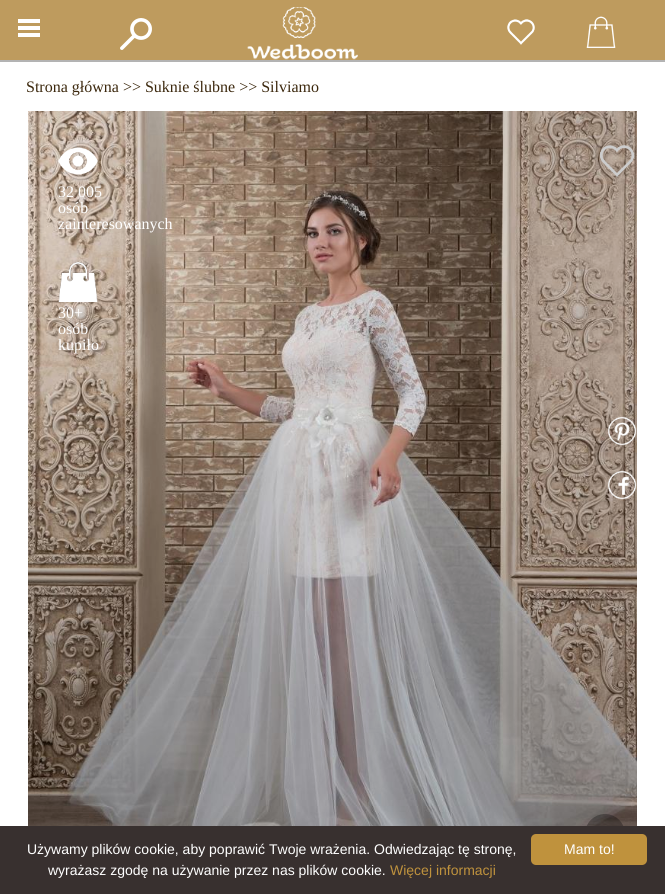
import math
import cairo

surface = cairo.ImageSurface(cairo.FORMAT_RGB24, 665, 894)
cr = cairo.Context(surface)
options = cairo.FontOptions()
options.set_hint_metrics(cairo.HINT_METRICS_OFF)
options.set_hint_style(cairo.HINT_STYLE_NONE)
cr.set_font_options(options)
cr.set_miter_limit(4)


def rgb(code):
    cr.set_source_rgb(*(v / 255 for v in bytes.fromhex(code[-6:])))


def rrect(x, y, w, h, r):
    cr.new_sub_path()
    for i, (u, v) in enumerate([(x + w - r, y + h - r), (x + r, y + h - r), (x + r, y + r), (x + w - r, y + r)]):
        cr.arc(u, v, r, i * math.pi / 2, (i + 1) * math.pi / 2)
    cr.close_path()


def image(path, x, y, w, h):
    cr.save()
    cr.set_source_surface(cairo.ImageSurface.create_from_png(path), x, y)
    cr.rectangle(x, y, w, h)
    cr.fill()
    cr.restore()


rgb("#ffffff")
cr.paint()
cr.rectangle(-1, -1, 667, 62)
rgb("#b3b3b3")
cr.stroke()
rgb("#be9b5e")
cr.rectangle(0, 0, 665, 60)
cr.fill()
image("img/1.png", 18, 19, 22, 18)
image("img/2.png", 120, 18, 32, 32)
image("img/3.png", 247, 7, 111, 53)
image("img/4.png", 507, 19, 28, 26)
image("img/5.png", 586, 16, 30, 32)
image("img/6.png", 28, 111, 609, 715)
image("img/7.png", 599, 145, 36, 32)
image("img/8.png", 58, 147, 40, 28)
image("img/9.png", 58, 262, 40, 40)
image("img/10.png", 607, 416, 30, 30)
image("img/11.png", 607, 470, 30, 30)
image("img/12.png", 586, 814, 38, 12)
rgb("#38302f")
cr.rectangle(0, 826, 665, 68)
cr.fill()
rgb("#bf923d")
rrect(531, 834, 116, 31, 5)
cr.fill()
cr.select_font_face("Liberation Serif")
cr.set_font_size(16)
rgb("#3c280d")
cr.move_to(26, 92)
cr.show_text("Strona główna >> Suknie ślubne >> Silviamo")
rgb("#ffffff")
for x, y, s in [
    (58, 197, "32 005"),
    (58, 213, "osób"),
    (58, 229, "zainteresowanych"),
    (58, 318, "30+"),
    (58, 334, "osób"),
    (58, 350, "kupiło"),
]:
    cr.move_to(x, y)
    cr.show_text(s)
cr.select_font_face("Liberation Sans")
cr.set_font_size(14)
cr.move_to(27, 854)
cr.show_text("Używamy plików cookie, aby poprawić Twoje wrażenia. Odwiedzając tę stronę,")
cr.move_to(48, 875)
cr.show_text("wyrażasz zgodę na używanie przez nas plików cookie.")
rgb("#bf923d")
cr.move_to(390, 875)
cr.show_text("Więcej informacji")
rgb("#ffffff")
cr.move_to(564, 854)
cr.show_text("Mam to!")
surface.write_to_png("page.png")
